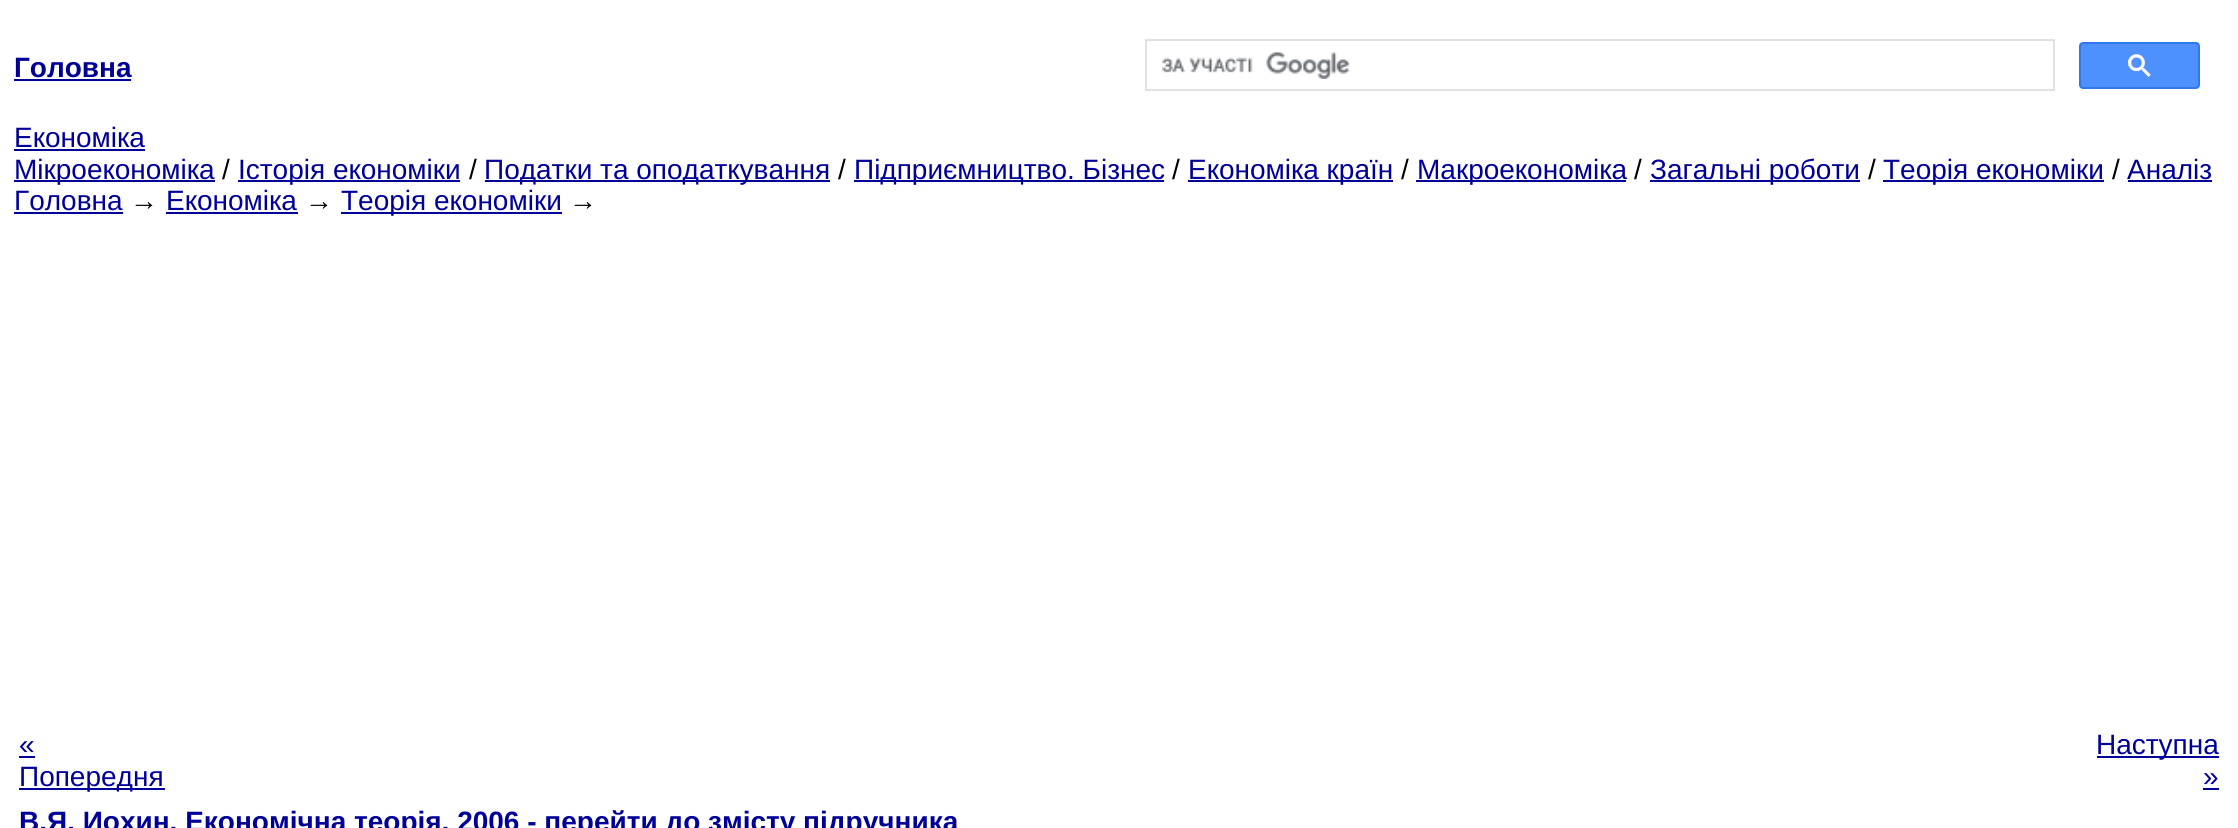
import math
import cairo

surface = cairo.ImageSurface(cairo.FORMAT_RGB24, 2238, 828)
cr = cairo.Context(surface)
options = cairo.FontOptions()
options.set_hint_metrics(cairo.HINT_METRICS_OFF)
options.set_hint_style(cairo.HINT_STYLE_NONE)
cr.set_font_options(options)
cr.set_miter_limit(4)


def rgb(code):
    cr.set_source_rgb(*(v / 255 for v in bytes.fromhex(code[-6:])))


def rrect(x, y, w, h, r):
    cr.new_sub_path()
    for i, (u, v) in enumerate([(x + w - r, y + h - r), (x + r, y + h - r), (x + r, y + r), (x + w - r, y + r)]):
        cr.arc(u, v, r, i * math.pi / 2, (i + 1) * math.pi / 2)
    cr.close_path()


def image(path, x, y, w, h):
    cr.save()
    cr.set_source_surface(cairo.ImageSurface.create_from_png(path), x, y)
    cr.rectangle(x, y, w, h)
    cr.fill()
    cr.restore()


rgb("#ffffff")
cr.paint()
rgb("#000099")
cr.rectangle(14, 79, 117, 2)
cr.fill()
cr.rectangle(1146, 40, 908, 50)
rgb("#dfe1e5")
cr.stroke()
image("img/1.png", 1162, 52, 188, 27)
rgb("#4d90fe")
rrect(2080, 43, 119, 45, 3)
cr.fill_preserve()
rgb("#3079ed")
cr.stroke()
image("img/2.png", 2128, 54, 23, 23)
for x, y, w, h, color in [
    (14, 149, 131, 2, "#000099"),
    (14, 180, 201, 2, "#000099"),
    (238, 180, 222, 2, "#000099"),
    (485, 180, 345, 2, "#000099"),
    (854, 180, 310, 2, "#000099"),
    (1188, 180, 205, 2, "#000099"),
    (1416, 180, 210, 2, "#000099"),
    (1650, 180, 210, 2, "#000099"),
    (1883, 180, 221, 2, "#000099"),
    (2128, 180, 84, 2, "#000099"),
    (14, 212, 109, 2, "#000099"),
    (166, 212, 132, 2, "#000099"),
    (341, 212, 221, 2, "#000099"),
    (19, 756, 16, 2, "#000099"),
    (19, 788, 146, 2, "#000099"),
    (2097, 756, 122, 2, "#000099"),
    (2203, 788, 16, 2, "#000099"),
]:
    rgb(color)
    cr.rectangle(x, y, w, h)
    cr.fill()
cr.select_font_face("Liberation Sans", cairo.FONT_SLANT_NORMAL, cairo.FONT_WEIGHT_BOLD)
cr.set_font_size(28)
cr.move_to(14, 77)
cr.show_text("Головна")
cr.select_font_face("Liberation Sans")
cr.move_to(14, 147)
cr.show_text("Економіка")
cr.move_to(14, 179)
cr.show_text("Мікроекономіка")
rgb("#000000")
cr.move_to(222, 179)
cr.show_text("/")
rgb("#000099")
cr.move_to(238, 179)
cr.show_text("Історія економіки")
rgb("#000000")
cr.move_to(469, 179)
cr.show_text("/")
rgb("#000099")
cr.move_to(484, 179)
cr.show_text("Податки та оподаткування")
rgb("#000000")
cr.move_to(838, 179)
cr.show_text("/")
rgb("#000099")
cr.move_to(854, 179)
cr.show_text("Підприємництво. Бізнес")
rgb("#000000")
cr.move_to(1172, 179)
cr.show_text("/")
rgb("#000099")
cr.move_to(1188, 179)
cr.show_text("Економіка країн")
rgb("#000000")
cr.move_to(1401, 179)
cr.show_text("/")
rgb("#000099")
cr.move_to(1417, 179)
cr.show_text("Макроекономіка")
rgb("#000000")
cr.move_to(1634, 179)
cr.show_text("/")
rgb("#000099")
cr.move_to(1650, 179)
cr.show_text("Загальні роботи")
rgb("#000000")
cr.move_to(1868, 179)
cr.show_text("/")
rgb("#000099")
cr.move_to(1883, 179)
cr.show_text("Теорія економіки")
rgb("#000000")
cr.move_to(2112, 179)
cr.show_text("/")
rgb("#000099")
cr.move_to(2127, 179)
cr.show_text("Аналіз")
cr.move_to(14, 210)
cr.show_text("Головна")
rgb("#000000")
cr.move_to(130, 210)
cr.show_text("→")
rgb("#000099")
cr.move_to(166, 210)
cr.show_text("Економіка")
rgb("#000000")
cr.move_to(305, 210)
cr.show_text("→")
rgb("#000099")
cr.move_to(341, 210)
cr.show_text("Теорія економіки")
rgb("#000000")
cr.move_to(569, 210)
cr.show_text("→")
rgb("#000099")
for x, y, s in [
    (19, 754, "«"),
    (19, 786, "Попередня"),
    (2096, 754, "Наступна"),
    (2203, 786, "»"),
]:
    cr.move_to(x, y)
    cr.show_text(s)
cr.select_font_face("Liberation Sans", cairo.FONT_SLANT_NORMAL, cairo.FONT_WEIGHT_BOLD)
cr.move_to(19, 831)
cr.show_text("В.Я. Иохин. Економічна теорія, 2006 - перейти до змісту підручника")
surface.write_to_png("page.png")
